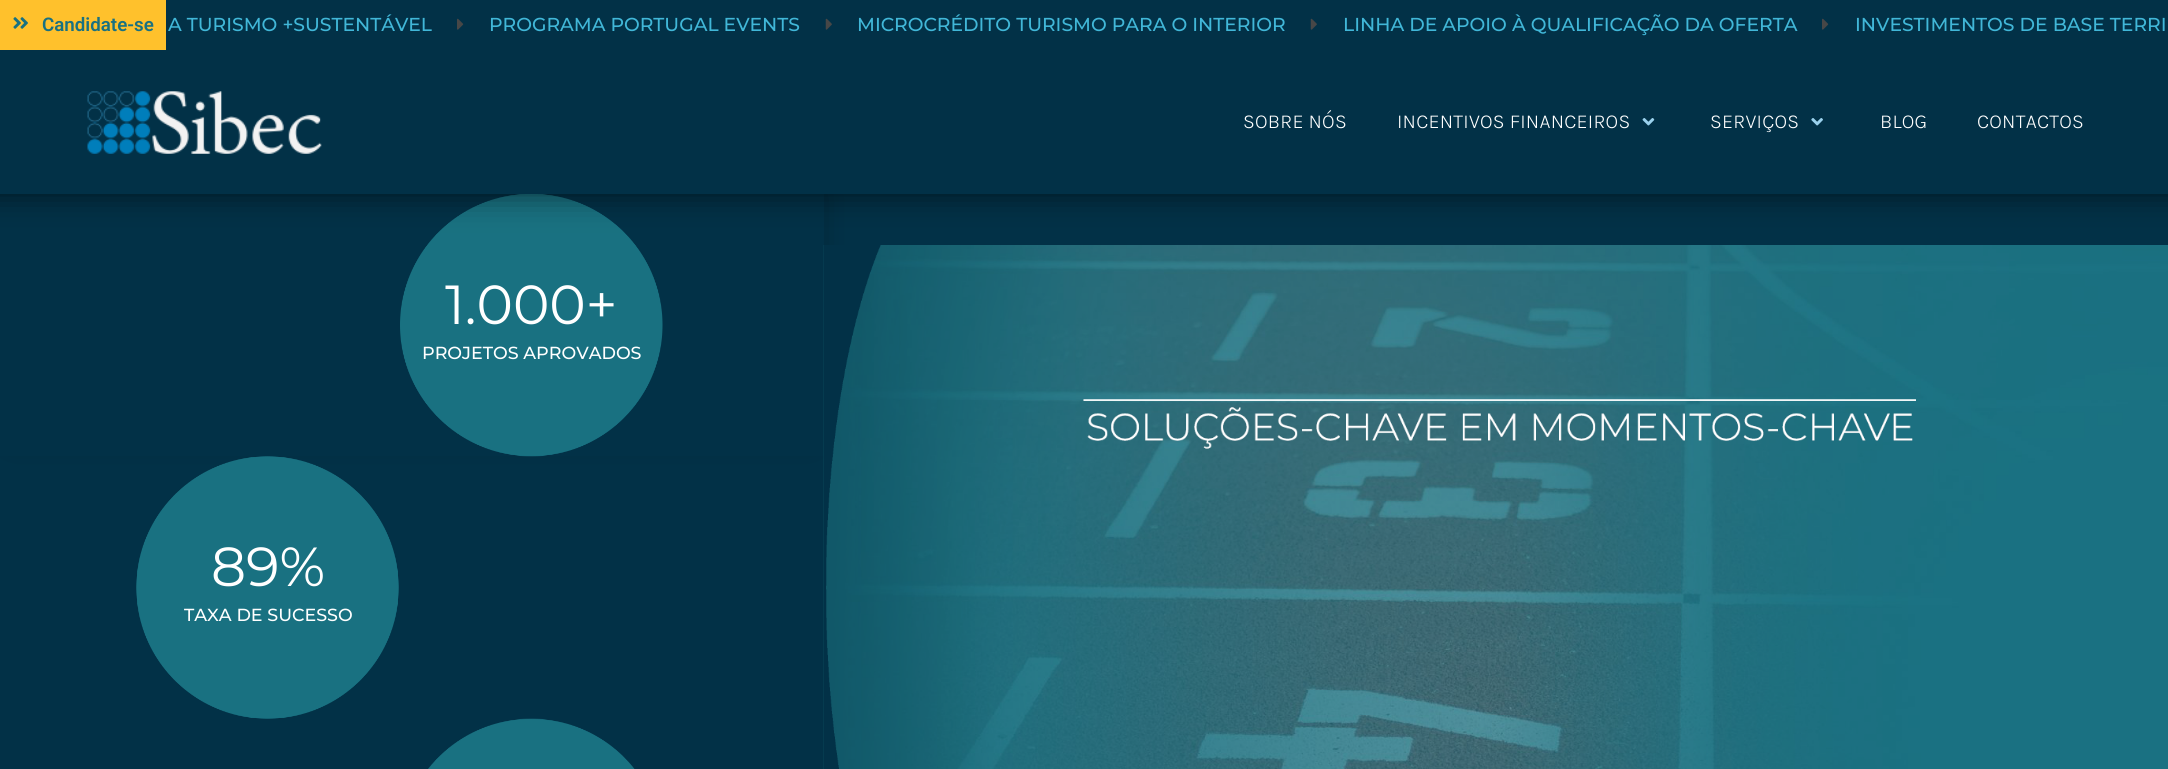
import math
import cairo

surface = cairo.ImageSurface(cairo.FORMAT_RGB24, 2168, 769)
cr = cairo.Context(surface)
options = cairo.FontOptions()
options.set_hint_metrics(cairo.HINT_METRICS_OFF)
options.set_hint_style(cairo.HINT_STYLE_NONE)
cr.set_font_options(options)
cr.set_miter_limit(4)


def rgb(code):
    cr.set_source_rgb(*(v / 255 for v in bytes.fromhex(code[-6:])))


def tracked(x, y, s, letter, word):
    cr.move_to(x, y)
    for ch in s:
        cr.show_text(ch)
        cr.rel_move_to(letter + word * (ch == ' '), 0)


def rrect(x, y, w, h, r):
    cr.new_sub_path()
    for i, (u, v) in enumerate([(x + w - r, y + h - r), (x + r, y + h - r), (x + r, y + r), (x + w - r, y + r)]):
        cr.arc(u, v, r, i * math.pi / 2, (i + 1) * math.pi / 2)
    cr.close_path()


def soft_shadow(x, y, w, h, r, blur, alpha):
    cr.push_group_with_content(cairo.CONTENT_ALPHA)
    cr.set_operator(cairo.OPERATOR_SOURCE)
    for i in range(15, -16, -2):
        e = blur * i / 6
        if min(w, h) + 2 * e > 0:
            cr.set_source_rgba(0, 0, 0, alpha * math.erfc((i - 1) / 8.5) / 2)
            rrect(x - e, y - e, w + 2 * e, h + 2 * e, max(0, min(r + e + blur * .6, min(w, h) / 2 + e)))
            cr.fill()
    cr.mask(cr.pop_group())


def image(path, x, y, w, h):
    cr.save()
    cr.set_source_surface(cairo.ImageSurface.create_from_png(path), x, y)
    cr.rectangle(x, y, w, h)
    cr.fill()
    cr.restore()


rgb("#023147")
cr.paint()
cr.save()
cr.set_fill_rule(cairo.FILL_RULE_EVEN_ODD)
cr.new_path()
cr.move_to(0, 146)
cr.line_to(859, 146)
cr.line_to(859, 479)
cr.line_to(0, 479)
cr.close_path()
cr.move_to(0, 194)
cr.line_to(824, 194)
cr.line_to(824, 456)
cr.line_to(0, 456)
cr.close_path()
cr.clip()
rgb("#000000")
soft_shadow(13, 194, 798, 237, 0, 15.5, 0.58)
cr.restore()
image("img/7.png", 400, 194, 263, 263)
rgb("#000000")
soft_shadow(-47, -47, 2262, 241, 0, 15.5, 0.58)
rgb("#023147")
cr.rectangle(0, 0, 2168, 194)
cr.fill()
rgb("#ffc12c")
cr.rectangle(0, 0, 166, 50)
cr.fill()
image("img/1.png", 13, 17, 15, 12)
image("img/2.png", 457, 18, 7, 12)
image("img/3.png", 825, 18, 7, 12)
image("img/3.png", 1310, 18, 7, 12)
image("img/2.png", 1822, 18, 7, 12)
image("img/4.png", 87, 91, 235, 63)
image("img/5.png", 1642, 118, 13, 8)
image("img/6.png", 1811, 118, 12, 8)
image("img/8.png", 136, 456, 263, 263)
image("img/9.png", 428, 718, 207, 51)
image("img/10.png", 823, 245, 1345, 524)
image("img/11.png", 824, 245, 57, 524)
cr.select_font_face("Roboto SemiBold")
cr.set_font_size(18.75)
rgb("#197181")
cr.move_to(42, 31)
cr.show_text("Candidate-se")
cr.select_font_face("Montserrat Medium")
rgb("#41b7d8")
for x, y, s in [
    (168, 31, "A TURISMO +SUSTENTÁVEL"),
    (489, 31, "PROGRAMA PORTUGAL EVENTS"),
    (857, 31, "MICROCRÉDITO TURISMO PARA O INTERIOR"),
    (1343, 31, "LINHA DE APOIO À QUALIFICAÇÃO DA OFERTA"),
    (1855, 31, "INVESTIMENTOS DE BASE TERRI"),
]:
    cr.move_to(x, y)
    cr.show_text(s)
cr.select_font_face("Karla Light")
cr.set_font_size(20)
rgb("#ffffff")
for x, y, s in [
    (1243, 128, "SOBRE NÓS"),
    (1397, 128, "INCENTIVOS FINANCEIROS"),
    (1710, 128, "SERVIÇOS"),
    (1880, 128, "BLOG"),
    (1977, 128, "CONTACTOS"),
]:
    tracked(x, y, s, 0.25, 0)
cr.select_font_face("Montserrat")
cr.set_font_size(55)
cr.move_to(445, 324)
cr.show_text("1.000+")
cr.select_font_face("Montserrat Medium")
cr.set_font_size(17.5)
cr.move_to(422, 359)
cr.show_text("PROJETOS APROVADOS")
cr.select_font_face("Montserrat")
cr.set_font_size(55)
cr.move_to(211, 586)
cr.show_text("89%")
cr.select_font_face("Montserrat Medium")
cr.set_font_size(17.5)
cr.move_to(184, 621)
cr.show_text("TAXA DE SUCESSO")
surface.write_to_png("page.png")
